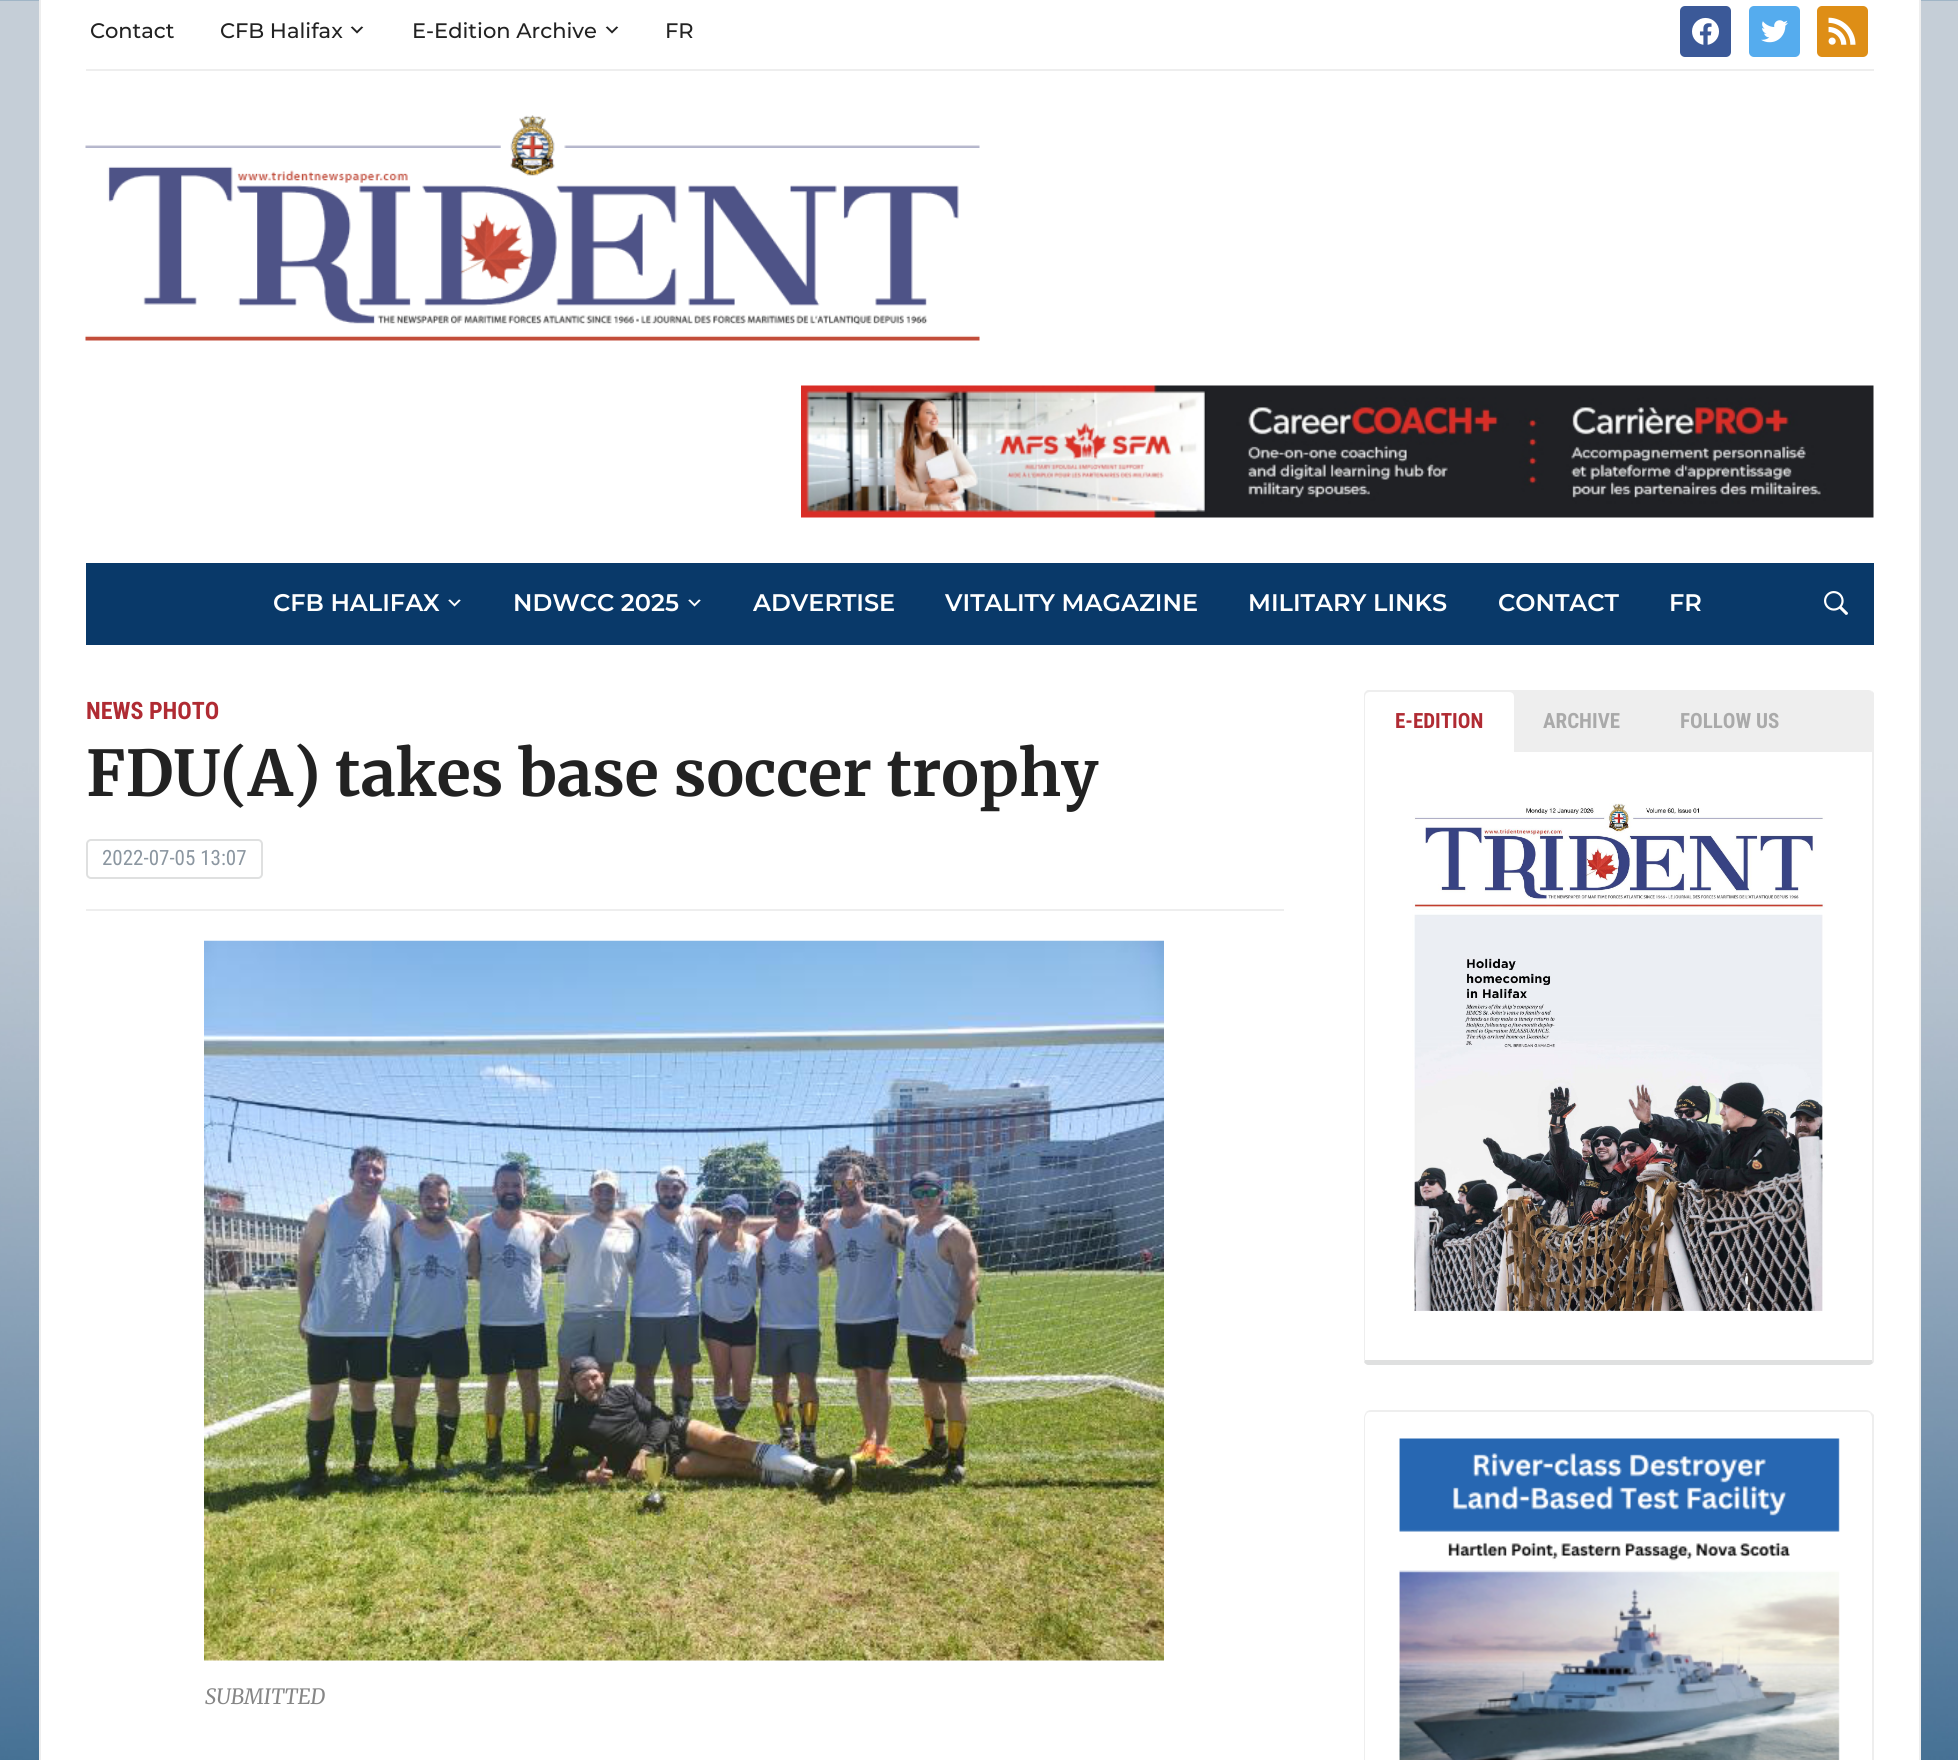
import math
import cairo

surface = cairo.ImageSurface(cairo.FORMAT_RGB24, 1958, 1760)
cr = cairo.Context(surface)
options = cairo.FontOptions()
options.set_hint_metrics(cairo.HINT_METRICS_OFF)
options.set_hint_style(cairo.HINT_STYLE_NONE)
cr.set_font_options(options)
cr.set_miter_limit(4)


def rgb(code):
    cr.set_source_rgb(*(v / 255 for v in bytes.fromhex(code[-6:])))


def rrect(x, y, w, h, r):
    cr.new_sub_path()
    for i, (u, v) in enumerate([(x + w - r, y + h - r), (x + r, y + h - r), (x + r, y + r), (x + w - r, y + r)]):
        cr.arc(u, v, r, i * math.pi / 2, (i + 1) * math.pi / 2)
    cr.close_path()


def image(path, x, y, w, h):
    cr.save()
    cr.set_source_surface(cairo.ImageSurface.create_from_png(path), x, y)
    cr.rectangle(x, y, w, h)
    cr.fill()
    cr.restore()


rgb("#ffffff")
cr.paint()
image("img/1.png", 0, 0, 1958, 1760)
for x, y, w, h, color in [
    (41, 0, 1878, 1760, "#ffffff"),
    (1919, 0, 2, 1760, "#eeeeee"),
    (39, 0, 2, 1760, "#eeeeee"),
    (86, 69, 1788, 2, "#eeeeee"),
]:
    rgb(color)
    cr.rectangle(x, y, w, h)
    cr.fill()
image("img/2.png", 350, 26, 14, 8)
image("img/2.png", 605, 26, 14, 8)
rgb("#3b5998")
rrect(1680, 6, 51, 51, 5)
cr.fill()
image("img/3.png", 1692, 17, 27, 28)
rgb("#55acee")
rrect(1749, 6, 51, 51, 5)
cr.fill()
image("img/4.png", 1761, 20, 27, 23)
rgb("#de8e16")
rrect(1817, 6, 51, 51, 5)
cr.fill()
image("img/5.png", 1828, 17, 28, 28)
image("img/6.png", 85, 115, 895, 226)
image("img/7.png", 801, 385, 1073, 133)
rgb("#093969")
cr.rectangle(86, 563, 1788, 82)
cr.fill()
image("img/8.png", 448, 599, 13, 8)
image("img/8.png", 688, 599, 13, 8)
image("img/9.png", 1824, 591, 24, 24)
rgb("#eeeeee")
cr.rectangle(86, 909, 1198, 2)
cr.fill()
rrect(87, 840, 175, 38, 4)
rgb("#dfe0e0")
cr.stroke()
image("img/10.png", 204, 940, 960, 721)
rgb("#eeeeee")
cr.new_path()
cr.move_to(1368, 690)
cr.curve_to(1367, 690, 1366, 691, 1365, 692)
cr.line_to(1366, 692)
cr.line_to(1368, 692)
cr.line_to(1869, 692)
cr.line_to(1871, 692)
cr.line_to(1872, 691)
cr.line_to(1869, 690)
cr.close_path()
cr.fill()
cr.new_path()
cr.move_to(1874, 1362)
cr.line_to(1873, 1363)
cr.line_to(1872, 1360)
cr.line_to(1872, 694)
cr.line_to(1871, 692)
cr.line_to(1872, 691)
cr.line_to(1874, 693)
cr.close_path()
cr.fill()
rgb("#dfe0e0")
cr.new_path()
cr.move_to(1368, 1365)
cr.line_to(1869, 1365)
cr.curve_to(1870, 1365, 1872, 1364, 1873, 1363)
cr.line_to(1872, 1360)
cr.line_to(1365, 1360)
cr.line_to(1364, 1362)
cr.curve_to(1365, 1364, 1367, 1365, 1368, 1365)
cr.close_path()
cr.fill()
rgb("#eeeeee")
cr.new_path()
cr.move_to(1365, 692)
cr.line_to(1364, 694)
cr.line_to(1364, 1360)
cr.line_to(1364, 1362)
cr.line_to(1365, 1360)
cr.line_to(1365, 694)
cr.line_to(1366, 692)
cr.close_path()
cr.fill()
cr.rectangle(1365, 692, 507, 60)
cr.fill()
rgb("#ffffff")
cr.new_path()
cr.move_to(1370, 692)
cr.line_to(1509, 692)
cr.curve_to(1512, 692, 1514, 694, 1514, 697)
cr.line_to(1514, 752)
cr.line_to(1365, 752)
cr.line_to(1365, 697)
cr.curve_to(1365, 694, 1367, 692, 1370, 692)
cr.close_path()
cr.fill()
image("img/11.png", 1412, 803, 413, 510)
rgb("#eeeeee")
cr.new_path()
cr.move_to(1371, 1410)
cr.curve_to(1369, 1410, 1367, 1411, 1366, 1412)
cr.line_to(1367, 1413)
cr.curve_to(1368, 1412, 1370, 1412, 1371, 1412)
cr.line_to(1866, 1412)
cr.curve_to(1867, 1412, 1869, 1412, 1870, 1413)
cr.line_to(1871, 1412)
cr.curve_to(1870, 1411, 1868, 1410, 1866, 1410)
cr.close_path()
cr.fill()
cr.new_path()
cr.move_to(1874, 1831)
cr.line_to(1872, 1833)
cr.line_to(1871, 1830)
cr.line_to(1872, 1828)
cr.line_to(1872, 1418)
cr.curve_to(1872, 1416, 1871, 1415, 1870, 1413)
cr.line_to(1871, 1412)
cr.line_to(1874, 1415)
cr.close_path()
cr.fill()
cr.new_path()
cr.move_to(1366, 1412)
cr.curve_to(1365, 1414, 1364, 1416, 1364, 1418)
cr.line_to(1364, 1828)
cr.line_to(1365, 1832)
cr.line_to(1366, 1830)
cr.line_to(1365, 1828)
cr.line_to(1365, 1418)
cr.curve_to(1365, 1416, 1366, 1415, 1367, 1413)
cr.close_path()
cr.fill()
image("img/12.png", 1399, 1438, 441, 322)
cr.select_font_face("Montserrat Medium")
cr.set_font_size(21)
rgb("#222222")
for x, y, s in [
    (90, 38, "Contact"),
    (220, 38, "CFB Halifax"),
    (412, 38, "E-Edition Archive"),
    (665, 38, "FR"),
]:
    cr.move_to(x, y)
    cr.show_text(s)
cr.select_font_face("Montserrat SemiBold")
cr.set_font_size(24)
rgb("#ffffff")
for x, y, s in [
    (273, 611, "CFB HALIFAX"),
    (513, 611, "NDWCC 2025"),
    (753, 611, "ADVERTISE"),
    (945, 611, "VITALITY MAGAZINE"),
    (1248, 611, "MILITARY LINKS"),
    (1498, 611, "CONTACT"),
    (1669, 611, "FR"),
]:
    cr.move_to(x, y)
    cr.show_text(s)
cr.select_font_face("Roboto Condensed", cairo.FONT_SLANT_NORMAL, cairo.FONT_WEIGHT_BOLD)
rgb("#b02b33")
cr.move_to(86, 719)
cr.show_text("NEWS PHOTO")
cr.select_font_face("Merriweather", cairo.FONT_SLANT_NORMAL, cairo.FONT_WEIGHT_BOLD)
cr.set_font_size(63)
rgb("#222222")
cr.move_to(86, 796)
cr.show_text("FDU(A) takes base soccer trophy")
cr.select_font_face("Roboto Condensed")
cr.set_font_size(21)
rgb("#8b96a0")
cr.move_to(102, 865)
cr.show_text("2022-07-05 13:07")
cr.select_font_face("Merriweather", cairo.FONT_SLANT_ITALIC)
rgb("#868686")
cr.move_to(205, 1704)
cr.show_text("SUBMITTED")
cr.select_font_face("Roboto Condensed", cairo.FONT_SLANT_NORMAL, cairo.FONT_WEIGHT_BOLD)
rgb("#b02b33")
cr.move_to(1395, 728)
cr.show_text("E-EDITION")
rgb("#aaaaaa")
cr.move_to(1543, 728)
cr.show_text("ARCHIVE")
cr.move_to(1680, 728)
cr.show_text("FOLLOW US")
surface.write_to_png("page.png")
